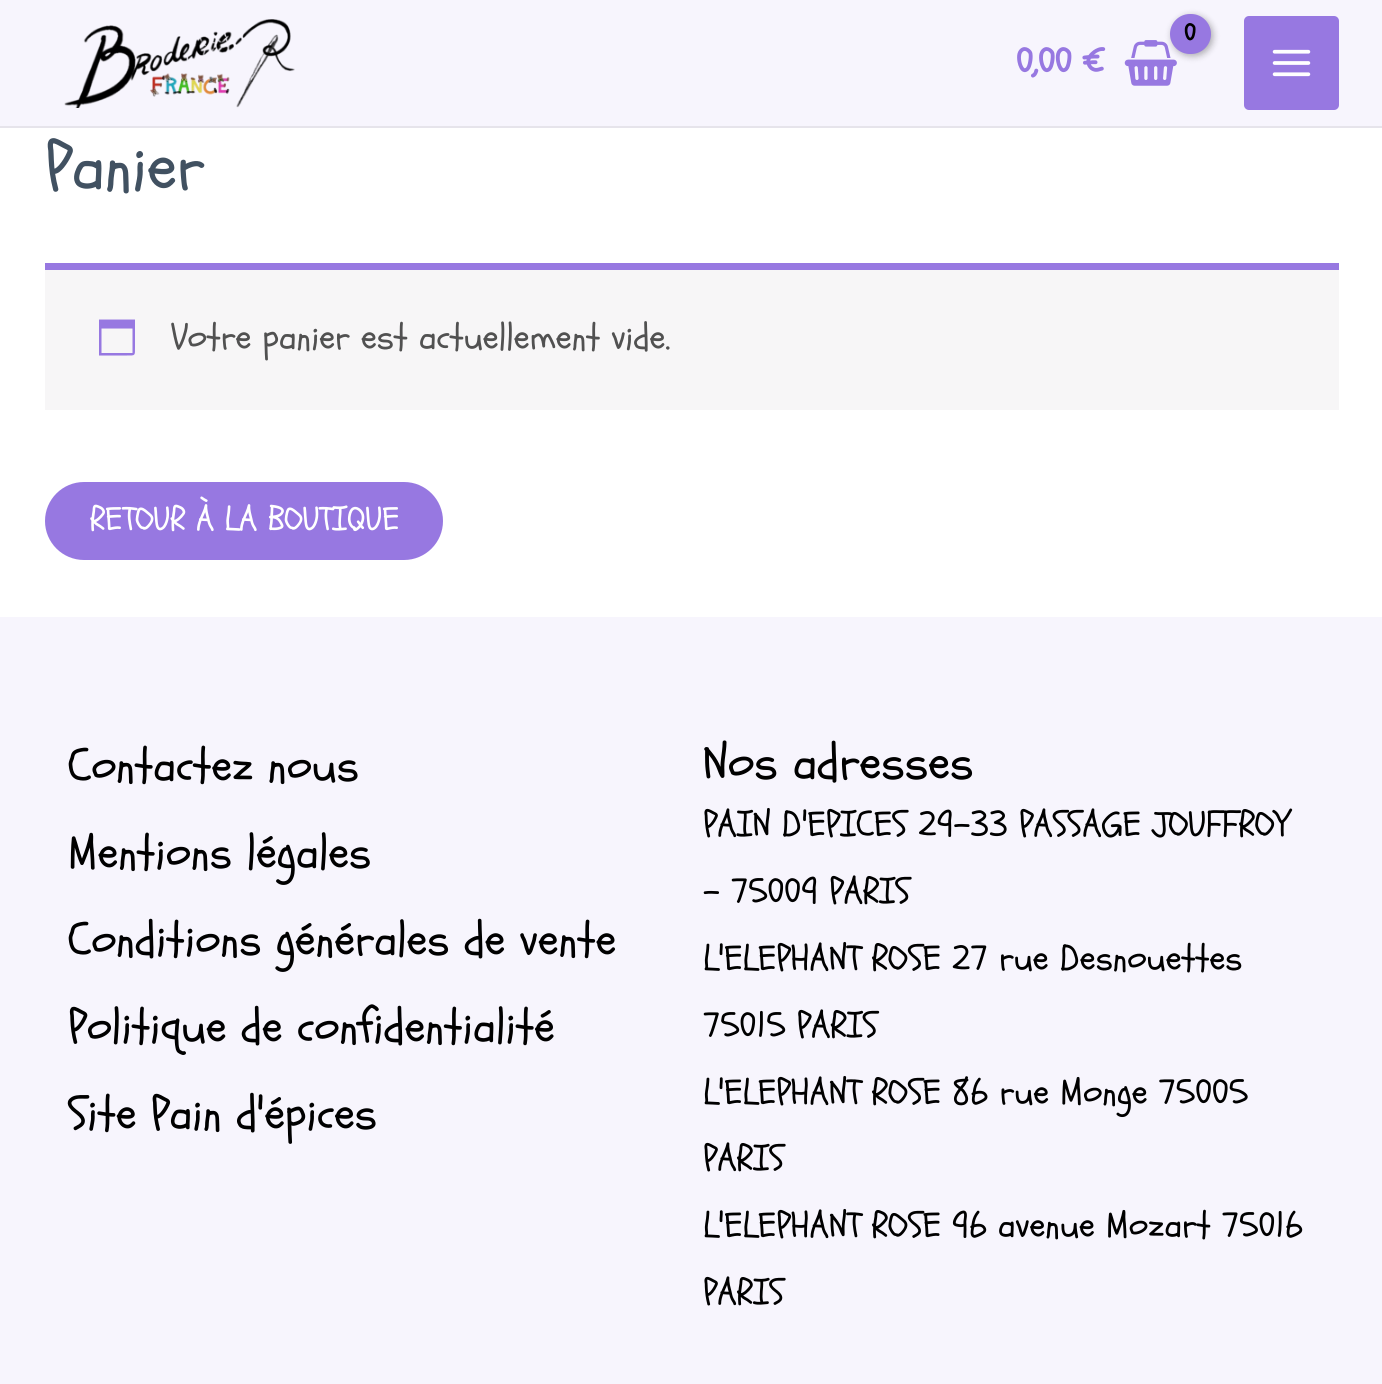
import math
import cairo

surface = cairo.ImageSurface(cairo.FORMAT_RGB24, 1382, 1384)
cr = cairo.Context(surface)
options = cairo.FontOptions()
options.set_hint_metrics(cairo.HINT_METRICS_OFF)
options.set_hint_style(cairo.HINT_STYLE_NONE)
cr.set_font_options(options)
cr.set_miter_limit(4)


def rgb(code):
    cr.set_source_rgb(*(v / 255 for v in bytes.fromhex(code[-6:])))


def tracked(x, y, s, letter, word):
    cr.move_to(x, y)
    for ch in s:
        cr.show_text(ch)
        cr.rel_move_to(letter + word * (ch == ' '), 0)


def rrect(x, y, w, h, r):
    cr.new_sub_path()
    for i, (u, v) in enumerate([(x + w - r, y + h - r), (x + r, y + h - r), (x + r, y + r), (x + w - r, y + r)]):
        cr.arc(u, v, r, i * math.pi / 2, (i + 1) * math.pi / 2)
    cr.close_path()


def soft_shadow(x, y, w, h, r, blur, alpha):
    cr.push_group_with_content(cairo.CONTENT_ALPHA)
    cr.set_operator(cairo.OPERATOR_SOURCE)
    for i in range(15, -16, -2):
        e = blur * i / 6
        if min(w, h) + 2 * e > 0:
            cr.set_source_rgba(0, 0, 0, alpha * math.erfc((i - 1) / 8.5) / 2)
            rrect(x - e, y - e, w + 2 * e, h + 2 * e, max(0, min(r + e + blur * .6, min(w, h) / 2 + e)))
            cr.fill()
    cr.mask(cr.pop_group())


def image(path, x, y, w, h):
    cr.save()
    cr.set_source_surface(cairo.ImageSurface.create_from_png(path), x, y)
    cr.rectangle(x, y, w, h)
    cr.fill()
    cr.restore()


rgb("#ffffff")
cr.paint()
rgb("#f7f5fd")
cr.rectangle(0, 0, 1382, 126)
cr.fill()
rgb("#e6e4eb")
cr.rectangle(0, 126, 1382, 2)
cr.fill()
image("img/1.png", 64, 19, 231, 89)
image("img/2.png", 1124, 40, 53, 46)
rgb("#000000")
soft_shadow(1172, 16, 41, 40, 20, 3.5, 0.3)
rgb("#9778e1")
rrect(1170, 14, 41, 40, 20)
cr.fill()
rrect(1244, 16, 95, 94, 5)
cr.fill()
image("img/3.png", 1272, 49, 39, 28)
rgb("#f7f6f7")
cr.rectangle(45, 270, 1294, 140)
cr.fill()
rgb("#9778e1")
cr.rectangle(45, 263, 1294, 7)
cr.fill()
cr.new_path()
cr.move_to(132.5, 328.5)
cr.line_to(101.5, 328.5)
cr.line_to(101.5, 353)
cr.line_to(132.5, 353)
cr.close_path()
cr.move_to(135, 319.5)
cr.line_to(135, 347)
cr.curve_to(135, 356, 135.5, 355.5, 127, 355.5)
cr.line_to(99, 355.5)
cr.line_to(99, 319.5)
cr.close_path()
cr.fill()
rrect(45, 482, 398, 78, 39)
cr.fill()
rgb("#f7f5fd")
cr.rectangle(0, 617, 1382, 767)
cr.fill()
cr.select_font_face("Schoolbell", cairo.FONT_SLANT_NORMAL, cairo.FONT_WEIGHT_BOLD)
cr.set_font_size(25)
rgb("#000000")
tracked(1184, 41, "0", -1, 0)
cr.set_font_size(36)
rgb("#9778e1")
cr.move_to(1016, 73)
cr.show_text("0,00 €")
cr.select_font_face("Schoolbell")
cr.set_font_size(67.5)
rgb("#415161")
cr.move_to(45, 189)
cr.show_text("Panier")
cr.set_font_size(36)
rgb("#515151")
cr.move_to(171, 349)
cr.show_text("Votre panier est actuellement vide.")
cr.set_font_size(33.75)
rgb("#ffffff")
cr.move_to(90, 530)
cr.show_text("RETOUR À LA BOUTIQUE")
cr.set_font_size(46.75)
rgb("#000000")
for x, y, s in [
    (68, 781, "Contactez nous"),
    (68, 868, "Mentions légales"),
    (68, 955, "Conditions générales de vente"),
    (68, 1042, "Politique de confidentialité"),
    (68, 1129, "Site Pain d'épices"),
]:
    cr.move_to(x, y)
    cr.show_text(s)
cr.set_font_size(49.5)
cr.move_to(703, 779)
cr.show_text("Nos adresses")
cr.set_font_size(36)
for x, y, s in [
    (703, 836, "PAIN D'EPICES 29-33 PASSAGE JOUFFROY"),
    (703, 903, "- 75009 PARIS"),
    (703, 970, "L'ELEPHANT ROSE 27 rue Desnouettes"),
    (703, 1037, "75015 PARIS"),
    (703, 1104, "L'ELEPHANT ROSE 86 rue Monge 75005"),
    (703, 1170, "PARIS"),
    (703, 1237, "L'ELEPHANT ROSE 96 avenue Mozart 75016"),
    (703, 1304, "PARIS"),
]:
    cr.move_to(x, y)
    cr.show_text(s)
surface.write_to_png("page.png")
